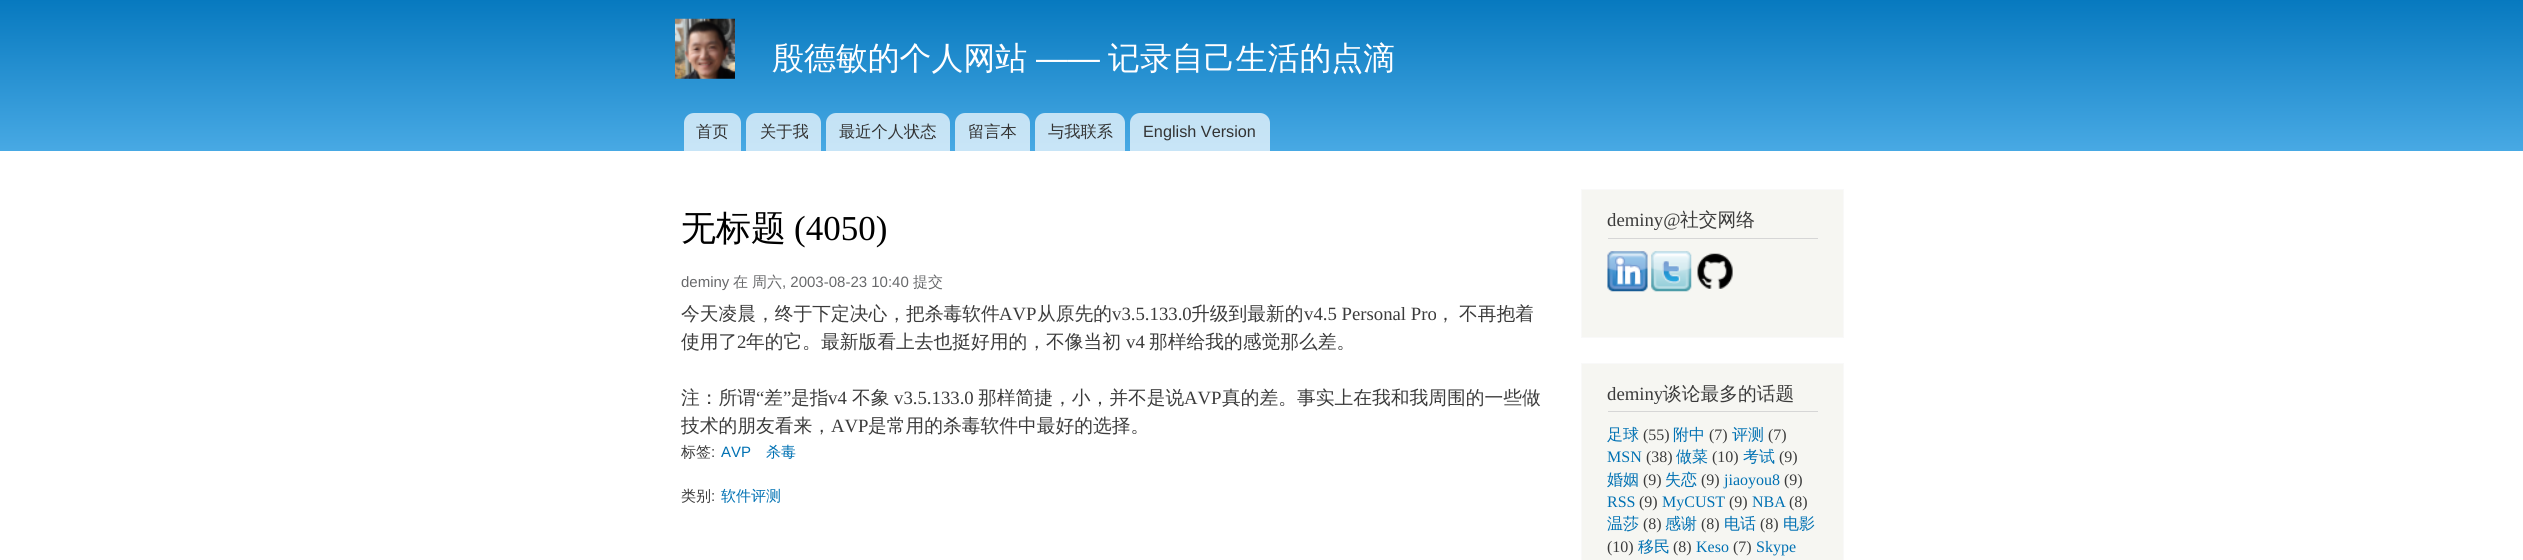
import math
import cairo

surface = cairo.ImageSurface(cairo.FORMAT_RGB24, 2523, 560)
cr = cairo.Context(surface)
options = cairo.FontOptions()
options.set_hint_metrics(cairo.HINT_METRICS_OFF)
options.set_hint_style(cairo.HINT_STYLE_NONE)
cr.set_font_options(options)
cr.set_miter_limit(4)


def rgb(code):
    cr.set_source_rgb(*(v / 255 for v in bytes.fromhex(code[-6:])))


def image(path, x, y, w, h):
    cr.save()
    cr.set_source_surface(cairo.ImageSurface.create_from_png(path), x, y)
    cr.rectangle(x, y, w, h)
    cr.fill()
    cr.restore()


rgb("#ffffff")
cr.paint()
gradient = cairo.LinearGradient(1262, 0, 1262, 151)
gradient.add_color_stop_rgba(0, 0.027, 0.475, 0.749, 1)
gradient.add_color_stop_rgba(1, 0.282, 0.663, 0.894, 1)
cr.set_source(gradient)
cr.rectangle(0, 0, 2523, 151)
cr.fill()
image("img/1.png", 675, 18, 60, 61)
cr.set_source_rgba(1, 1, 1, 0.7)
cr.new_path()
cr.move_to(694, 113)
cr.line_to(731, 113)
cr.curve_to(736.5, 113, 741, 117.5, 741, 123)
cr.line_to(741, 151)
cr.line_to(684, 151)
cr.line_to(684, 123)
cr.curve_to(684, 117.5, 688.5, 113, 694, 113)
cr.close_path()
cr.fill()
cr.new_path()
cr.move_to(756, 113)
cr.line_to(811, 113)
cr.curve_to(816.5, 113, 821, 117.5, 821, 123)
cr.line_to(821, 151)
cr.line_to(746, 151)
cr.line_to(746, 123)
cr.curve_to(746, 117.5, 750.5, 113, 756, 113)
cr.close_path()
cr.fill()
cr.new_path()
cr.move_to(836, 113)
cr.line_to(940, 113)
cr.curve_to(945.5, 113, 950, 117.5, 950, 123)
cr.line_to(950, 151)
cr.line_to(826, 151)
cr.line_to(826, 123)
cr.curve_to(826, 117.5, 830.5, 113, 836, 113)
cr.close_path()
cr.fill()
cr.new_path()
cr.move_to(965, 113)
cr.line_to(1020, 113)
cr.curve_to(1025.5, 113, 1030, 117.5, 1030, 123)
cr.line_to(1030, 151)
cr.line_to(955, 151)
cr.line_to(955, 123)
cr.curve_to(955, 117.5, 959.5, 113, 965, 113)
cr.close_path()
cr.fill()
cr.new_path()
cr.move_to(1045, 113)
cr.line_to(1115, 113)
cr.curve_to(1120.5, 113, 1125, 117.5, 1125, 123)
cr.line_to(1125, 151)
cr.line_to(1035, 151)
cr.line_to(1035, 123)
cr.curve_to(1035, 117.5, 1039.5, 113, 1045, 113)
cr.close_path()
cr.fill()
cr.new_path()
cr.move_to(1140, 113)
cr.line_to(1260, 113)
cr.curve_to(1265.5, 113, 1270, 117.5, 1270, 123)
cr.line_to(1270, 151)
cr.line_to(1130, 151)
cr.line_to(1130, 123)
cr.curve_to(1130, 117.5, 1134.5, 113, 1140, 113)
cr.close_path()
cr.fill()
rgb("#f6f6f2")
cr.rectangle(1581.5, 189.5, 262, 148)
cr.fill_preserve()
rgb("#f9f9f9")
cr.set_line_width(1)
cr.stroke()
rgb("#d6d6d6")
cr.rectangle(1608, 238, 210, 1)
cr.fill()
image("img/2.png", 1607, 251, 41, 41)
image("img/3.png", 1651, 251, 41, 41)
image("img/4.png", 1697, 253, 36, 36)
rgb("#f6f6f2")
cr.rectangle(1581.5, 363.5, 262, 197)
cr.fill_preserve()
rgb("#f9f9f9")
cr.stroke()
rgb("#d6d6d6")
cr.rectangle(1608, 411, 210, 1)
cr.fill()
cr.select_font_face("WenQuanYi Zen Hei Medium")
cr.set_font_size(31.9)
rgb("#fffeff")
cr.move_to(772, 69)
cr.show_text("殷德敏的个人网站")
cr.select_font_face("Liberation Sans")
cr.move_to(1036, 69)
cr.show_text("——")
cr.select_font_face("WenQuanYi Zen Hei Medium")
cr.move_to(1108, 69)
cr.show_text("记录自己生活的点滴")
cr.set_font_size(16.25)
rgb("#333333")
for x, y, s in [
    (696, 137, "首页"),
    (760, 137, "关于我"),
    (839, 137, "最近个人状态"),
    (968, 137, "留言本"),
    (1048, 137, "与我联系"),
]:
    cr.move_to(x, y)
    cr.show_text(s)
cr.select_font_face("Liberation Sans")
cr.move_to(1143, 137)
cr.show_text("English Version")
cr.select_font_face("WenQuanYi Zen Hei Medium")
cr.set_font_size(35)
rgb("#000000")
cr.move_to(681, 240)
cr.show_text("无标题")
cr.select_font_face("Liberation Serif")
cr.move_to(794, 240)
cr.show_text("(4050)")
cr.select_font_face("Liberation Sans")
cr.set_font_size(15)
rgb("#68696b")
cr.move_to(681, 287)
cr.show_text("deminy")
cr.select_font_face("WenQuanYi Zen Hei Medium")
cr.move_to(733, 287)
cr.show_text("在")
cr.move_to(752, 287)
cr.show_text("周六")
cr.select_font_face("Liberation Sans")
cr.move_to(782, 287)
cr.show_text(", 2003-08-23 10:40")
cr.select_font_face("WenQuanYi Zen Hei Medium")
cr.move_to(913, 287)
cr.show_text("提交")
cr.set_font_size(18.75)
rgb("#3b3b3b")
cr.move_to(681, 320)
cr.show_text("今天凌晨，终于下定决心，把杀毒软件")
cr.select_font_face("Liberation Serif")
cr.move_to(999, 320)
cr.show_text("AVP")
cr.select_font_face("WenQuanYi Zen Hei Medium")
cr.move_to(1037, 320)
cr.show_text("从原先的")
cr.select_font_face("Liberation Serif")
cr.move_to(1112, 320)
cr.show_text("v3.5.133.0")
cr.select_font_face("WenQuanYi Zen Hei Medium")
cr.move_to(1191, 320)
cr.show_text("升级到最新的")
cr.select_font_face("Liberation Serif")
cr.move_to(1304, 320)
cr.show_text("v4.5 Personal Pro")
cr.select_font_face("WenQuanYi Zen Hei Medium")
for x, y, s in [
    (1436, 320, "，"),
    (1459, 320, "不再抱着"),
    (681, 348, "使用了"),
]:
    cr.move_to(x, y)
    cr.show_text(s)
cr.select_font_face("Liberation Serif")
cr.move_to(737, 348)
cr.show_text("2")
cr.select_font_face("WenQuanYi Zen Hei Medium")
cr.move_to(746, 348)
cr.show_text("年的它。最新版看上去也挺好用的，不像当初")
cr.select_font_face("Liberation Serif")
cr.move_to(1126, 348)
cr.show_text("v4")
cr.select_font_face("WenQuanYi Zen Hei Medium")
cr.move_to(1149, 348)
cr.show_text("那样给我的感觉那么差。")
cr.move_to(681, 404)
cr.show_text("注：所谓")
cr.select_font_face("Liberation Serif")
cr.move_to(756, 404)
cr.show_text("“")
cr.select_font_face("WenQuanYi Zen Hei Medium")
cr.move_to(764, 404)
cr.show_text("差")
cr.select_font_face("Liberation Serif")
cr.move_to(783, 404)
cr.show_text("”")
cr.select_font_face("WenQuanYi Zen Hei Medium")
cr.move_to(791, 404)
cr.show_text("是指")
cr.select_font_face("Liberation Serif")
cr.move_to(828, 404)
cr.show_text("v4")
cr.select_font_face("WenQuanYi Zen Hei Medium")
cr.move_to(852, 404)
cr.show_text("不象")
cr.select_font_face("Liberation Serif")
cr.move_to(894, 404)
cr.show_text("v3.5.133.0")
cr.select_font_face("WenQuanYi Zen Hei Medium")
cr.move_to(978, 404)
cr.show_text("那样简捷，小，并不是说")
cr.select_font_face("Liberation Serif")
cr.move_to(1184, 404)
cr.show_text("AVP")
cr.select_font_face("WenQuanYi Zen Hei Medium")
cr.move_to(1222, 404)
cr.show_text("真的差。事实上在我和我周围的一些做")
cr.move_to(681, 432)
cr.show_text("技术的朋友看来，")
cr.select_font_face("Liberation Serif")
cr.move_to(831, 432)
cr.show_text("AVP")
cr.select_font_face("WenQuanYi Zen Hei Medium")
cr.move_to(868, 432)
cr.show_text("是常用的杀毒软件中最好的选择。")
cr.set_font_size(15)
cr.move_to(681, 457)
cr.show_text("标签")
cr.select_font_face("Liberation Sans")
cr.move_to(711, 457)
cr.show_text(":")
rgb("#0071b3")
cr.move_to(721, 457)
cr.show_text("AVP")
cr.select_font_face("WenQuanYi Zen Hei Medium")
cr.move_to(766, 457)
cr.show_text("杀毒")
rgb("#3b3b3b")
cr.move_to(681, 501)
cr.show_text("类别")
cr.select_font_face("Liberation Sans")
cr.move_to(711, 501)
cr.show_text(":")
cr.select_font_face("WenQuanYi Zen Hei Medium")
rgb("#0071b3")
cr.move_to(721, 501)
cr.show_text("软件评测")
cr.select_font_face("Liberation Serif")
cr.set_font_size(18.75)
rgb("#3b3b3b")
cr.move_to(1607, 226)
cr.show_text("deminy@")
cr.select_font_face("WenQuanYi Zen Hei Medium")
cr.move_to(1680, 226)
cr.show_text("社交网络")
cr.select_font_face("Liberation Serif")
cr.move_to(1607, 400)
cr.show_text("deminy")
cr.select_font_face("WenQuanYi Zen Hei Medium")
cr.move_to(1663, 400)
cr.show_text("谈论最多的话题")
cr.set_font_size(16)
rgb("#0071b3")
cr.move_to(1607, 440)
cr.show_text("足球")
cr.select_font_face("Liberation Serif")
rgb("#3b3b3b")
cr.move_to(1643, 440)
cr.show_text("(55)")
cr.select_font_face("WenQuanYi Zen Hei Medium")
rgb("#0071b3")
cr.move_to(1673, 440)
cr.show_text("附中")
cr.select_font_face("Liberation Serif")
rgb("#3b3b3b")
cr.move_to(1709, 440)
cr.show_text("(7)")
cr.select_font_face("WenQuanYi Zen Hei Medium")
rgb("#0071b3")
cr.move_to(1732, 440)
cr.show_text("评测")
cr.select_font_face("Liberation Serif")
rgb("#3b3b3b")
cr.move_to(1768, 440)
cr.show_text("(7)")
rgb("#0071b3")
cr.move_to(1607, 462)
cr.show_text("MSN")
rgb("#3b3b3b")
cr.move_to(1646, 462)
cr.show_text("(38)")
cr.select_font_face("WenQuanYi Zen Hei Medium")
rgb("#0071b3")
cr.move_to(1676, 462)
cr.show_text("做菜")
cr.select_font_face("Liberation Serif")
rgb("#3b3b3b")
cr.move_to(1712, 462)
cr.show_text("(10)")
cr.select_font_face("WenQuanYi Zen Hei Medium")
rgb("#0071b3")
cr.move_to(1743, 462)
cr.show_text("考试")
cr.select_font_face("Liberation Serif")
rgb("#3b3b3b")
cr.move_to(1779, 462)
cr.show_text("(9)")
cr.select_font_face("WenQuanYi Zen Hei Medium")
rgb("#0071b3")
cr.move_to(1607, 485)
cr.show_text("婚姻")
cr.select_font_face("Liberation Serif")
rgb("#3b3b3b")
cr.move_to(1643, 485)
cr.show_text("(9)")
cr.select_font_face("WenQuanYi Zen Hei Medium")
rgb("#0071b3")
cr.move_to(1665, 485)
cr.show_text("失恋")
cr.select_font_face("Liberation Serif")
rgb("#3b3b3b")
cr.move_to(1701, 485)
cr.show_text("(9)")
rgb("#0071b3")
cr.move_to(1724, 485)
cr.show_text("jiaoyou8")
rgb("#3b3b3b")
cr.move_to(1784, 485)
cr.show_text("(9)")
rgb("#0071b3")
cr.move_to(1607, 507)
cr.show_text("RSS")
rgb("#3b3b3b")
cr.move_to(1639, 507)
cr.show_text("(9)")
rgb("#0071b3")
cr.move_to(1662, 507)
cr.show_text("MyCUST")
rgb("#3b3b3b")
cr.move_to(1729, 507)
cr.show_text("(9)")
rgb("#0071b3")
cr.move_to(1752, 507)
cr.show_text("NBA")
rgb("#3b3b3b")
cr.move_to(1789, 507)
cr.show_text("(8)")
cr.select_font_face("WenQuanYi Zen Hei Medium")
rgb("#0071b3")
cr.move_to(1607, 529)
cr.show_text("温莎")
cr.select_font_face("Liberation Serif")
rgb("#3b3b3b")
cr.move_to(1643, 529)
cr.show_text("(8)")
cr.select_font_face("WenQuanYi Zen Hei Medium")
rgb("#0071b3")
cr.move_to(1665, 529)
cr.show_text("感谢")
cr.select_font_face("Liberation Serif")
rgb("#3b3b3b")
cr.move_to(1701, 529)
cr.show_text("(8)")
cr.select_font_face("WenQuanYi Zen Hei Medium")
rgb("#0071b3")
cr.move_to(1724, 529)
cr.show_text("电话")
cr.select_font_face("Liberation Serif")
rgb("#3b3b3b")
cr.move_to(1760, 529)
cr.show_text("(8)")
cr.select_font_face("WenQuanYi Zen Hei Medium")
rgb("#0071b3")
cr.move_to(1783, 529)
cr.show_text("电影")
cr.select_font_face("Liberation Serif")
rgb("#3b3b3b")
cr.move_to(1607, 552)
cr.show_text("(10)")
cr.select_font_face("WenQuanYi Zen Hei Medium")
rgb("#0071b3")
cr.move_to(1638, 552)
cr.show_text("移民")
cr.select_font_face("Liberation Serif")
rgb("#3b3b3b")
cr.move_to(1673, 552)
cr.show_text("(8)")
rgb("#0071b3")
cr.move_to(1696, 552)
cr.show_text("Keso")
rgb("#3b3b3b")
cr.move_to(1733, 552)
cr.show_text("(7)")
rgb("#0071b3")
cr.move_to(1756, 552)
cr.show_text("Skype")
surface.write_to_png("page.png")
